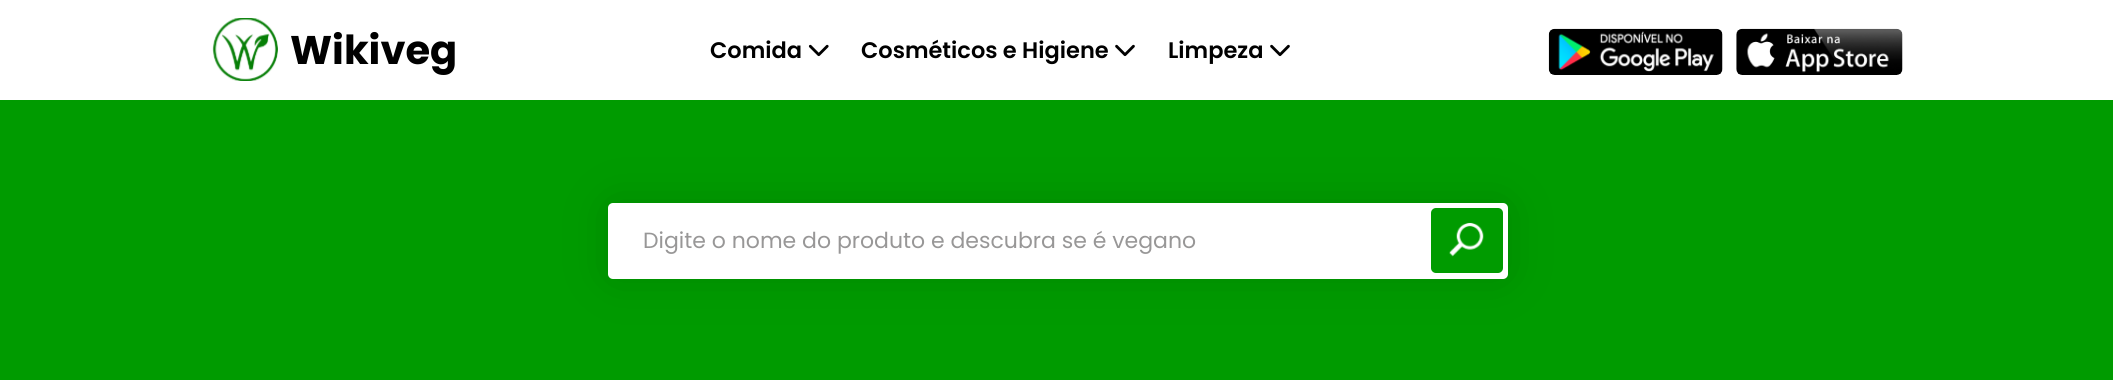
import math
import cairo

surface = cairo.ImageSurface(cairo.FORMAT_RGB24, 2113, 380)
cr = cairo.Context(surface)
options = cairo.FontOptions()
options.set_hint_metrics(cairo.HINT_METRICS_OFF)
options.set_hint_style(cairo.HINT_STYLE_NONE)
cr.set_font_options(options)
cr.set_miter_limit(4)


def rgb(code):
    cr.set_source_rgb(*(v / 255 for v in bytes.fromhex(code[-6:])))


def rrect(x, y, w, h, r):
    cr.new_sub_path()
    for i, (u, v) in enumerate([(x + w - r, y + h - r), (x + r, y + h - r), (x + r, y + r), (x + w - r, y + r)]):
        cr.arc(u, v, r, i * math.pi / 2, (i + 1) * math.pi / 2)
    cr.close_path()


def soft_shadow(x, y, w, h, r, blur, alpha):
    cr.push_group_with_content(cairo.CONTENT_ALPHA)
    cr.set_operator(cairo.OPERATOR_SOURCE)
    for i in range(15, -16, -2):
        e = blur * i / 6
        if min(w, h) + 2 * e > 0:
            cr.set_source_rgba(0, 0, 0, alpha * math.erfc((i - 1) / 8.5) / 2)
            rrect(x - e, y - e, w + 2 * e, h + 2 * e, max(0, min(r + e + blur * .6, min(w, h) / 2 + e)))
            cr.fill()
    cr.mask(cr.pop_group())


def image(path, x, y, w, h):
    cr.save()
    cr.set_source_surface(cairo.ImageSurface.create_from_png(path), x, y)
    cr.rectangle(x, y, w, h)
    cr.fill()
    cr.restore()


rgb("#ffffff")
cr.paint()
image("img/1.png", 212, 18, 66, 63)
image("img/2.png", 808, 44, 21, 13)
image("img/3.png", 1115, 44, 20, 13)
image("img/3.png", 1270, 44, 20, 13)
image("img/4.png", 1548, 28, 175, 47)
image("img/5.png", 1736, 28, 167, 47)
rgb("#009b00")
cr.rectangle(0, 100, 2113, 280)
cr.fill()
rgb("#000000")
soft_shadow(608, 203, 900, 76, 5, 25, 0.12)
rgb("#ffffff")
rrect(608, 203, 900, 76, 5)
cr.fill()
rgb("#009b00")
rrect(1431, 208, 72, 65, 5)
cr.fill()
image("img/6.png", 1449, 222, 35, 35)
cr.select_font_face("Poppins", cairo.FONT_SLANT_NORMAL, cairo.FONT_WEIGHT_BOLD)
cr.set_font_size(40)
rgb("#000000")
cr.move_to(290, 64)
cr.show_text("Wikiveg")
cr.select_font_face("Poppins SemiBold")
cr.set_font_size(22.5)
for x, y, s in [
    (710, 58, "Comida"),
    (861, 58, "Cosméticos e Higiene"),
    (1168, 58, "Limpeza"),
]:
    cr.move_to(x, y)
    cr.show_text(s)
cr.select_font_face("Poppins")
cr.set_font_size(22)
rgb("#989797")
cr.move_to(643, 248)
cr.show_text("Digite o nome do produto e descubra se é vegano")
surface.write_to_png("page.png")
